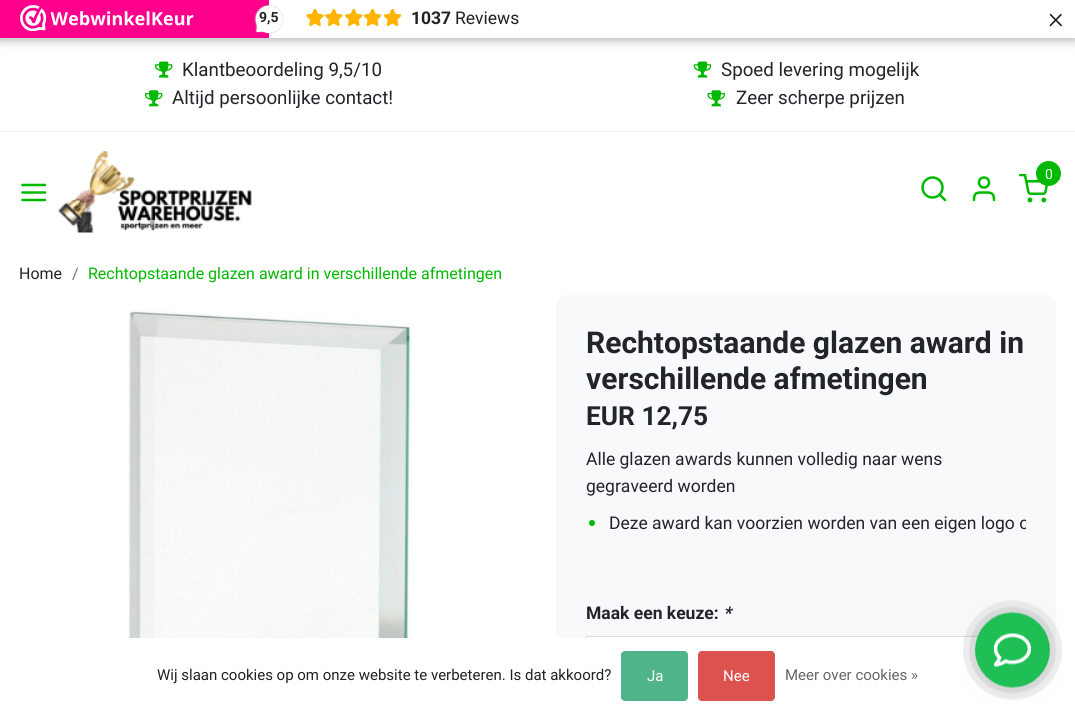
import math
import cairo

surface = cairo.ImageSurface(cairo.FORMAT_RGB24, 1075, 712)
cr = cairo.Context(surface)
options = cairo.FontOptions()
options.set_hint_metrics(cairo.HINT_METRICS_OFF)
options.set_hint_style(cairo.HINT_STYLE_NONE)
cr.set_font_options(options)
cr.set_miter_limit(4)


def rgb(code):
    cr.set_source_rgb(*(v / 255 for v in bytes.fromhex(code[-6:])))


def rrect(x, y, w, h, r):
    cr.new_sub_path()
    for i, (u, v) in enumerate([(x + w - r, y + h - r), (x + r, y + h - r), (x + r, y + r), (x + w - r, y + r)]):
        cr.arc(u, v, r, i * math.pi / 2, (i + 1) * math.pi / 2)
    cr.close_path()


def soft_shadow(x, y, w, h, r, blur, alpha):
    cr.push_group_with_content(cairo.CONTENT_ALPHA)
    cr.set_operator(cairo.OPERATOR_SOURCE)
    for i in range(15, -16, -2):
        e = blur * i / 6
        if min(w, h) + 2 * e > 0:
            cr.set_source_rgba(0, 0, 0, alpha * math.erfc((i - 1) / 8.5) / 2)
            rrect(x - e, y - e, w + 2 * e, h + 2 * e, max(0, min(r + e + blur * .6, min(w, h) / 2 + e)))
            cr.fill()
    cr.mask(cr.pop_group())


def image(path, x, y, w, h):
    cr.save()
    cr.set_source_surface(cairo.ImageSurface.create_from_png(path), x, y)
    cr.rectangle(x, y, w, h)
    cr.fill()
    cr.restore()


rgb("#ffffff")
cr.paint()
rgb("#000000")
soft_shadow(-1, -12, 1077, 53, 0, 4, 0.15)
soft_shadow(0, 3, 1075, 37, 0, 6, 0.15)
rgb("#fe008c")
cr.rectangle(0, 0, 269, 38)
cr.fill()
image("img/1.png", 20, 5, 174, 26)
rgb("#ffffff")
cr.rectangle(269, 0, 806, 38)
cr.fill()
image("img/2.png", 306, 9, 18, 17)
image("img/3.png", 325, 9, 18, 17)
image("img/3.png", 345, 9, 18, 17)
image("img/4.png", 364, 9, 17, 17)
image("img/4.png", 384, 9, 17, 17)
image("img/5.png", 254, 4, 30, 30)
rgb("#eeeeee")
cr.rectangle(0, 131, 1075, 1)
cr.fill()
image("img/6.png", 155, 61, 18, 17)
image("img/7.png", 693, 61, 19, 17)
image("img/8.png", 145, 90, 18, 17)
image("img/9.png", 707, 90, 18, 17)
cr.new_path()
cr.move_to(22.5, 192.5)
cr.line_to(45, 192.5)
cr.move_to(22.5, 185)
cr.line_to(45, 185)
cr.move_to(22.5, 200)
cr.line_to(45, 200)
rgb("#00b900")
cr.set_line_width(2.5)
cr.set_line_cap(cairo.LINE_CAP_ROUND)
cr.set_line_join(cairo.LINE_JOIN_ROUND)
cr.stroke()
image("img/10.png", 58, 151, 194, 82)
image("img/11.png", 1019, 174, 29, 29)
cr.arc(1048.5, 173.5, 12.5, 0, 2 * math.pi)
cr.fill()
cr.arc(932.5, 187.5, 10, 0, 2 * math.pi)
cr.set_line_cap(cairo.LINE_CAP_BUTT)
cr.set_line_join(cairo.LINE_JOIN_MITER)
cr.stroke()
cr.new_path()
cr.move_to(945, 200)
cr.line_to(939.5, 194.5)
cr.move_to(994, 200)
cr.curve_to(994, 192, 990.5, 192.5, 984, 192.5)
cr.curve_to(977, 192.5, 974, 192, 974, 200)
cr.set_line_cap(cairo.LINE_CAP_ROUND)
cr.set_line_join(cairo.LINE_JOIN_ROUND)
cr.stroke()
cr.arc(984, 182.5, 5, 0, 2 * math.pi)
cr.set_line_cap(cairo.LINE_CAP_BUTT)
cr.set_line_join(cairo.LINE_JOIN_MITER)
cr.stroke()
image("img/12.png", 127, 308, 287, 330)
rgb("#f8f9fa")
rrect(556, 295, 500, 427, 10)
cr.fill()
rgb("#00b900")
cr.arc(592, 523, 3, 0, 2 * math.pi)
cr.fill()
rgb("#ffffff")
cr.rectangle(587, 637, 391, 1)
cr.fill()
cr.rectangle(586.5, 636.5, 439, 57)
rgb("#dddddd")
cr.set_line_width(1)
cr.stroke()
rgb("#ffffff")
cr.rectangle(556, 638, 500, 74)
cr.fill()
rgb("#50b48a")
rrect(621, 651, 67, 50, 4)
cr.fill()
rgb("#db524e")
rrect(698, 651, 77, 50, 4)
cr.fill()
image("img/13.png", 963, 600, 99, 100)
cr.select_font_face("Roboto", cairo.FONT_SLANT_NORMAL, cairo.FONT_WEIGHT_BOLD)
cr.set_font_size(17.5)
rgb("#222222")
cr.move_to(411, 24)
cr.show_text("1037")
cr.select_font_face("Roboto")
cr.move_to(455, 24)
cr.show_text("Reviews")
cr.select_font_face("Roboto Light")
cr.set_font_size(30)
cr.move_to(1048, 28)
cr.show_text("×")
cr.select_font_face("Roboto", cairo.FONT_SLANT_NORMAL, cairo.FONT_WEIGHT_BOLD)
cr.set_font_size(14)
cr.move_to(259, 22)
cr.show_text("9,5")
cr.select_font_face("Roboto")
cr.set_font_size(18.75)
rgb("#212529")
for x, y, s in [
    (182, 76, "Klantbeoordeling 9,5/10"),
    (721, 76, "Spoed levering mogelijk"),
    (172, 104, "Altijd persoonlijke contact!"),
    (736, 104, "Zeer scherpe prijzen"),
]:
    cr.move_to(x, y)
    cr.show_text(s)
cr.set_font_size(14)
rgb("#ffffff")
cr.move_to(1045, 179)
cr.show_text("0")
cr.set_font_size(16)
rgb("#212529")
cr.move_to(19, 279)
cr.show_text("Home")
rgb("#6c757d")
cr.move_to(72, 279)
cr.show_text("/")
rgb("#00b900")
cr.move_to(88, 279)
cr.show_text("Rechtopstaande glazen award in verschillende afmetingen")
cr.select_font_face("Roboto", cairo.FONT_SLANT_NORMAL, cairo.FONT_WEIGHT_BOLD)
cr.set_font_size(30)
rgb("#212529")
cr.move_to(586, 353)
cr.show_text("Rechtopstaande glazen award in")
cr.move_to(586, 389)
cr.show_text("verschillende afmetingen")
cr.set_font_size(26.25)
cr.move_to(586, 425)
cr.show_text("EUR 12,75")
cr.select_font_face("Roboto")
cr.set_font_size(17.5)
cr.move_to(586, 465)
cr.show_text("Alle glazen awards kunnen volledig naar wens")
cr.move_to(586, 492)
cr.show_text("gegraveerd worden")
cr.save()
cr.rectangle(586, 509, 440, 82)
cr.clip()
cr.move_to(609, 529)
cr.show_text("Deze award kan voorzien worden van een eigen logo o")
cr.restore()
cr.select_font_face("Roboto", cairo.FONT_SLANT_NORMAL, cairo.FONT_WEIGHT_BOLD)
cr.move_to(586, 619)
cr.show_text("Maak een keuze:")
cr.select_font_face("Roboto", cairo.FONT_SLANT_ITALIC, cairo.FONT_WEIGHT_BOLD)
cr.move_to(723, 619)
cr.show_text("*")
cr.select_font_face("Roboto")
cr.set_font_size(15)
rgb("#222222")
cr.move_to(157, 680)
cr.show_text("Wij slaan cookies op om onze website te verbeteren. Is dat akkoord?")
rgb("#ffffff")
cr.move_to(647, 681)
cr.show_text("Ja")
cr.move_to(723, 681)
cr.show_text("Nee")
rgb("#666666")
cr.move_to(785, 680)
cr.show_text("Meer over cookies »")
surface.write_to_png("page.png")
